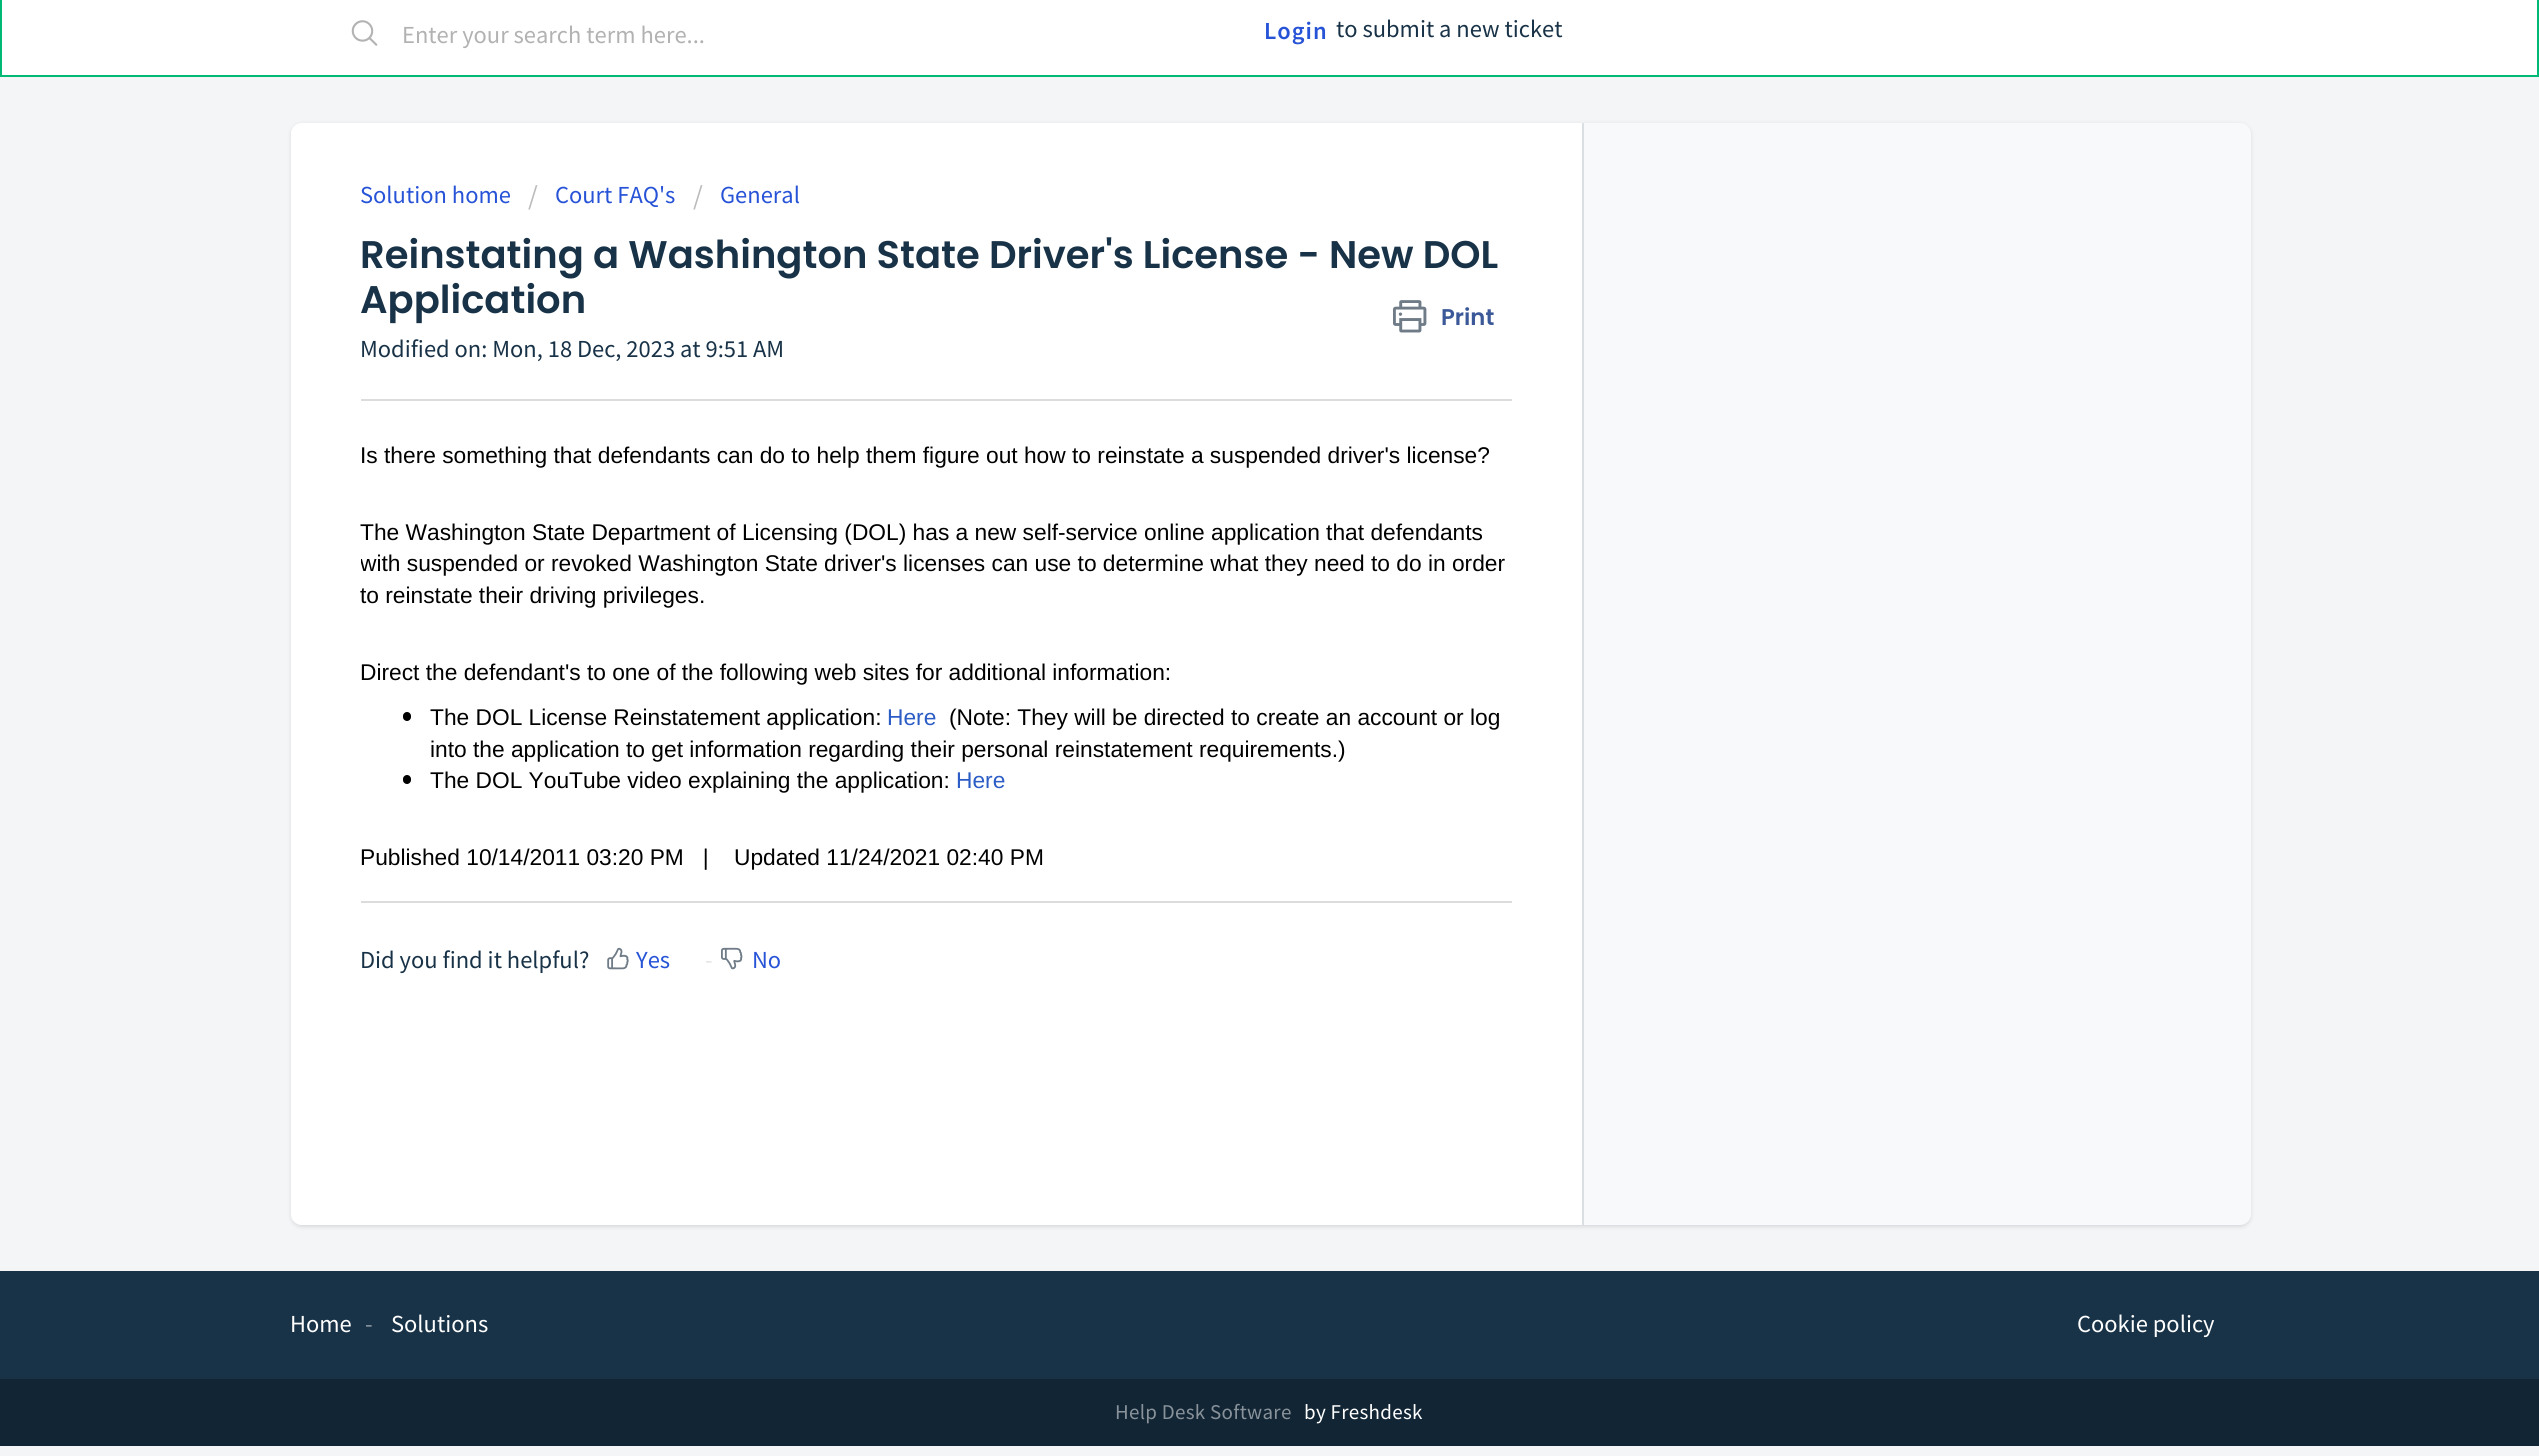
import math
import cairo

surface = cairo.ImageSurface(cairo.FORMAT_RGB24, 2539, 1456)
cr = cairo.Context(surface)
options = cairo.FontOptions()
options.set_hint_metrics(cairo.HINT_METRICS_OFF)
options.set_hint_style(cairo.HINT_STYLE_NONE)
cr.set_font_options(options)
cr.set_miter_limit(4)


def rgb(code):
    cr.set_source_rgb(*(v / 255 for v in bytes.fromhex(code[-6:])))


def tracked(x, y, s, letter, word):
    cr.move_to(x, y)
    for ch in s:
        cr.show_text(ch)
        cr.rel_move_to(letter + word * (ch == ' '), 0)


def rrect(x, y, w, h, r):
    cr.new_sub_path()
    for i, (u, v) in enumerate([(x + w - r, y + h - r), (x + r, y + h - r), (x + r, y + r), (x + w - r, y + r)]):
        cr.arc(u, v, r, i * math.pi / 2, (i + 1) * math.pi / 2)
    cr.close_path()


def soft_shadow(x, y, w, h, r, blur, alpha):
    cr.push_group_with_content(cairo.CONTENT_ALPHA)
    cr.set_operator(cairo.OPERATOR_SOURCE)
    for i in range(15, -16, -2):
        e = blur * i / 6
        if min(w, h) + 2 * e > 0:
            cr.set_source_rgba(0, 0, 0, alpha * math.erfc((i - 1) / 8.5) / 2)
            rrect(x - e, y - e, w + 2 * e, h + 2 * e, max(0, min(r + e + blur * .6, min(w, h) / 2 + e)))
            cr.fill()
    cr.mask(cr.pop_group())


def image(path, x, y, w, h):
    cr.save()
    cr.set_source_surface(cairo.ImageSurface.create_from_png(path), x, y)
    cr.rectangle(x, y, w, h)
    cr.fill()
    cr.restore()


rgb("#f3f5f7")
cr.paint()
rgb("#ffffff")
cr.rectangle(1, -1, 2537, 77)
cr.fill_preserve()
rgb("#02b875")
cr.stroke()
image("img/1.png", 351, 20, 27, 26)
rgb("#3f3f44")
soft_shadow(291, 124, 1960, 1103, 11, 2, 0.15)
rgb("#f8f9fa")
rrect(291, 123, 1960, 1102, 11)
cr.fill()
rgb("#ffffff")
cr.new_path()
cr.move_to(302, 123)
cr.line_to(1584, 123)
cr.line_to(1584, 1225)
cr.line_to(302, 1225)
cr.curve_to(296, 1225, 291, 1220, 291, 1214)
cr.line_to(291, 134)
cr.curve_to(291, 128, 296, 123, 302, 123)
cr.close_path()
cr.fill()
rgb("#dadfe3")
cr.rectangle(1582, 123, 2, 1102)
cr.fill()
image("img/2.png", 1393, 300, 34, 33)
rgb("#dcdcdc")
cr.rectangle(361, 399, 1151, 2)
cr.fill()
rgb("#000000")
rrect(403, 712, 8, 9, 4)
cr.fill()
rrect(403, 775, 8, 9, 4)
cr.fill()
rgb("#dcdcdc")
cr.rectangle(361, 901, 1151, 2)
cr.fill()
image("img/3.png", 607, 947, 22, 23)
image("img/4.png", 721, 947, 22, 23)
rgb("#183247")
cr.rectangle(0, 1271, 2539, 108)
cr.fill()
rgb("#122534")
cr.rectangle(0, 1379, 2539, 67)
cr.fill()
cr.select_font_face("Source Sans Pro")
cr.set_font_size(24.5)
rgb("#b2b2b2")
cr.move_to(402, 43)
cr.show_text("Enter your search term here...")
cr.select_font_face("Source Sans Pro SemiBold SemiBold")
rgb("#2753d7")
tracked(1264, 39, "Login", 1, 0)
cr.select_font_face("Source Sans Pro")
rgb("#183247")
cr.move_to(1336, 37)
cr.show_text("to submit a new ticket")
rgb("#2753d7")
cr.move_to(360, 203)
cr.show_text("Solution home")
cr.set_font_size(28)
rgb("#bbbbbb")
cr.move_to(528, 205)
cr.show_text("/")
cr.set_font_size(24.5)
rgb("#2753d7")
cr.move_to(555, 203)
cr.show_text("Court FAQ's")
cr.set_font_size(28)
rgb("#bbbbbb")
cr.move_to(693, 205)
cr.show_text("/")
cr.set_font_size(24.5)
rgb("#2753d7")
cr.move_to(720, 203)
cr.show_text("General")
cr.select_font_face("Poppins SemiBold")
cr.set_font_size(38.5)
rgb("#183247")
cr.move_to(360, 268)
cr.show_text("Reinstating a Washington State Driver's License - New DOL")
cr.move_to(360, 313)
cr.show_text("Application")
cr.set_font_size(22.75)
rgb("#3b5998")
cr.move_to(1441, 325)
cr.show_text("Print")
cr.select_font_face("Source Sans Pro")
cr.set_font_size(24.5)
rgb("#183247")
cr.move_to(360, 357)
cr.show_text("Modified on: Mon, 18 Dec, 2023 at 9:51 AM")
cr.select_font_face("Liberation Sans")
cr.set_font_size(22.75)
rgb("#000000")
cr.move_to(360, 463)
cr.show_text("Is there something that defendants can do to help them figure out how to reinstate a suspended driver's license?")
cr.move_to(360, 540)
cr.show_text("The Washington State Department of Licensing (DOL) has a new self-service online application that defendants")
cr.save()
cr.rectangle(361, 431, 1151, 441)
cr.clip()
cr.move_to(360, 571)
cr.show_text("with suspended or revoked Washington State driver's licenses can use to determine what they need to do in order")
cr.restore()
for x, y, s in [
    (360, 603, "to reinstate their driving privileges."),
    (360, 680, "Direct the defendant's to one of the following web sites for additional information:"),
    (430, 725, "The DOL License Reinstatement application:"),
]:
    cr.move_to(x, y)
    cr.show_text(s)
rgb("#2c5cc5")
cr.move_to(887, 725)
cr.show_text("Here")
rgb("#000000")
for x, y, s in [
    (949, 725, "(Note: They will be directed to create an account or log"),
    (430, 757, "into the application to get information regarding their personal reinstatement requirements.)"),
    (430, 788, "The DOL YouTube video explaining the application:"),
]:
    cr.move_to(x, y)
    cr.show_text(s)
rgb("#2c5cc5")
cr.move_to(956, 788)
cr.show_text("Here")
rgb("#000000")
cr.move_to(360, 865)
cr.show_text("Published 10/14/2011 03:20 PM   |    Updated 11/24/2021 02:40 PM")
cr.select_font_face("Source Sans Pro")
cr.set_font_size(24.5)
rgb("#183247")
cr.move_to(360, 968)
cr.show_text("Did you find it helpful?")
rgb("#2753d7")
cr.move_to(636, 968)
cr.show_text("Yes")
rgb("#e5e5e5")
cr.move_to(705, 968)
cr.show_text("-")
rgb("#2753d7")
cr.move_to(752, 968)
cr.show_text("No")
rgb("#ffffff")
cr.move_to(290, 1332)
cr.show_text("Home")
rgb("#8c99a3")
cr.move_to(365, 1332)
cr.show_text("-")
rgb("#ffffff")
cr.move_to(391, 1332)
cr.show_text("Solutions")
cr.move_to(2077, 1332)
cr.show_text("Cookie policy")
cr.set_font_size(21)
rgb("#89929a")
tracked(1115, 1419, "Help Desk Software", 0.3, 0)
rgb("#ffffff")
tracked(1304, 1419, "by Freshdesk", 0.3, 0)
surface.write_to_png("page.png")
